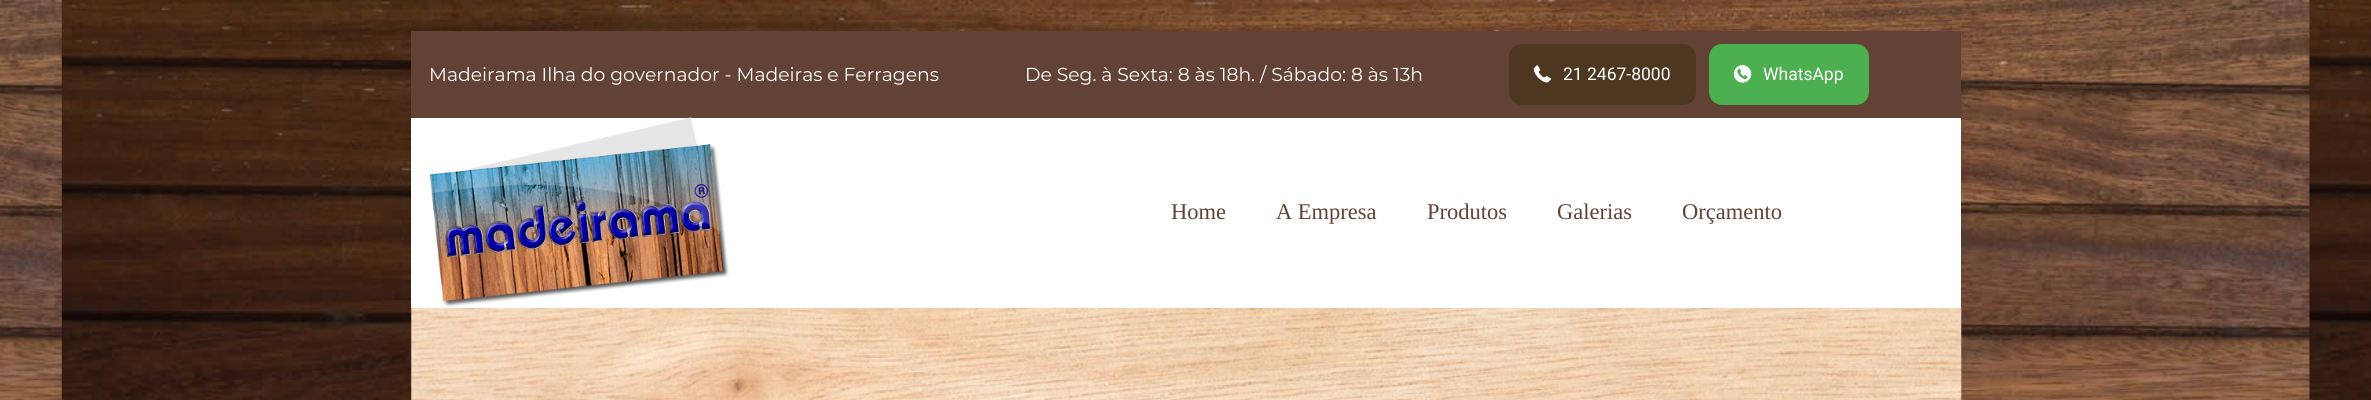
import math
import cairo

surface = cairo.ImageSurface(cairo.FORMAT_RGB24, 2371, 400)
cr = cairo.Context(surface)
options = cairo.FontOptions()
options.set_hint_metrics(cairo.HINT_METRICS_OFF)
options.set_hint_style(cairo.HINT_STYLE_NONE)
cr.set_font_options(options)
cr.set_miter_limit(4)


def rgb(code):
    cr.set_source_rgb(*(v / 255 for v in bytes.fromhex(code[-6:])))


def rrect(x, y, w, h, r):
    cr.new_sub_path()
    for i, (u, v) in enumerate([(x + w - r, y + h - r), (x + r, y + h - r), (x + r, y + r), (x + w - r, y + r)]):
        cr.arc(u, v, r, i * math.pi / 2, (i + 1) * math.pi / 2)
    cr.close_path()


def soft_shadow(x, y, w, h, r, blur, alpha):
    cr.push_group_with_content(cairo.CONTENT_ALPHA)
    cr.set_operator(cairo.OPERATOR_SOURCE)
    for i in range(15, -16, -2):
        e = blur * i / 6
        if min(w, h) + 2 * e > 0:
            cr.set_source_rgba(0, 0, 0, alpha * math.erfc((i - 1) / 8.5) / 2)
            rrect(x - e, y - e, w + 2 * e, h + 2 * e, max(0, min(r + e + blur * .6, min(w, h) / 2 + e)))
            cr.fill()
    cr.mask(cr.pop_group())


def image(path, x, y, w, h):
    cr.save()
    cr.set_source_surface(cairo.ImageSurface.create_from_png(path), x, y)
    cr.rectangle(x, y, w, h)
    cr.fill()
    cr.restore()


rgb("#ffffff")
cr.paint()
image("img/1.png", 0, 0, 2371, 400)
rgb("#000000")
soft_shadow(411, 31, 1550, 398, 0, 9.5, 0.06)
rgb("#624234")
cr.rectangle(411, 31, 1550, 87)
cr.fill()
rgb("#4d3720")
rrect(1509, 44, 187, 61, 13)
cr.fill()
image("img/2.png", 1533, 65, 18, 18)
rgb("#4caf50")
rrect(1709, 44, 160, 61, 13)
cr.fill()
image("img/3.png", 1733, 65, 19, 18)
image("img/5.png", 411, 307, 1551, 93)
rgb("#ffffff")
cr.rectangle(411, 118, 1550, 190)
cr.fill()
image("img/4.png", 430, 117, 299, 190)
cr.select_font_face("Montserrat")
cr.set_font_size(18.75)
cr.move_to(429, 81)
cr.show_text("Madeirama Ilha do governador - Madeiras e Ferragens")
cr.move_to(1025, 81)
cr.show_text("De Seg. à Sexta: 8 às 18h. / Sábado: 8 às 13h")
cr.select_font_face("Roboto")
cr.set_font_size(17.5)
cr.move_to(1563, 80)
cr.show_text("21 2467-8000")
cr.move_to(1763, 80)
cr.show_text("WhatsApp")
cr.select_font_face("Liberation Serif")
cr.set_font_size(22.5)
rgb("#624234")
for x, y, s in [
    (1171, 219, "Home"),
    (1276, 219, "A Empresa"),
    (1427, 219, "Produtos"),
    (1557, 219, "Galerias"),
    (1682, 219, "Orçamento"),
]:
    cr.move_to(x, y)
    cr.show_text(s)
surface.write_to_png("page.png")
